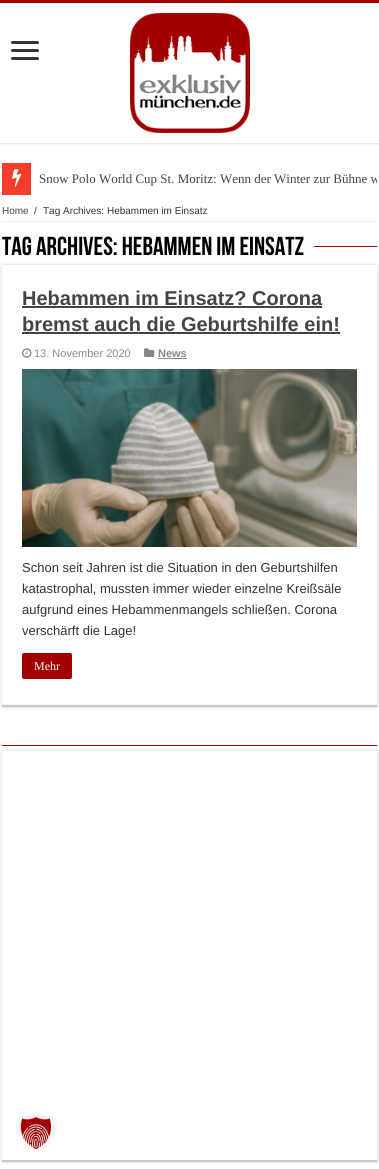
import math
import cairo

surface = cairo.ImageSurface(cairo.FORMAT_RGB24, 379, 1169)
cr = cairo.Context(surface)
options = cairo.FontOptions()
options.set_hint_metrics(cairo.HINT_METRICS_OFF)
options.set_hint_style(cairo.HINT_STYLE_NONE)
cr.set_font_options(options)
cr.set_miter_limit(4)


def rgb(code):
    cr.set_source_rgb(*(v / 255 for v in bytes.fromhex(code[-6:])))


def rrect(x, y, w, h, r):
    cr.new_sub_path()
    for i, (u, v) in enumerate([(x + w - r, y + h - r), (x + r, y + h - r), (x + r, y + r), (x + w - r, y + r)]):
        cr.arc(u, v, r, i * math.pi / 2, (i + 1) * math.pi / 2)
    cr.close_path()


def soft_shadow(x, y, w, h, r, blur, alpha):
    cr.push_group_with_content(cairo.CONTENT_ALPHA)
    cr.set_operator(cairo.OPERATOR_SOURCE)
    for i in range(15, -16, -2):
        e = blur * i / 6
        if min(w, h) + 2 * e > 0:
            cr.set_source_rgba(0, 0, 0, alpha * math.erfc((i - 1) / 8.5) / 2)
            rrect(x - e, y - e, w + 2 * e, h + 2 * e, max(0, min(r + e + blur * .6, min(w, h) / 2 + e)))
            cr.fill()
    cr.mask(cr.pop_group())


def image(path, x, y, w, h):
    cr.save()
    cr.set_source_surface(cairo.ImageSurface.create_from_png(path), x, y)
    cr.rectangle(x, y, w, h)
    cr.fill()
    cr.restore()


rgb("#ffffff")
cr.paint()
cr.save()
cr.rectangle(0, 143, 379, 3)
cr.clip()
rgb("#cacaca")
soft_shadow(0, 0, 379, 143, 0, 1.5, 1)
cr.restore()
rgb("#a20000")
cr.rectangle(0, 0, 379, 3)
cr.fill()
rgb("#333333")
rrect(11, 41, 28, 3, 1.5)
cr.fill()
rrect(11, 49, 28, 3, 1.5)
cr.fill()
rrect(11, 57, 28, 3, 1.5)
cr.fill()
image("img/1.png", 130, 13, 120, 120)
rgb("#f43d2a")
cr.rectangle(2, 163, 29, 32)
cr.fill()
image("img/2.png", 12, 169, 10, 18)
rgb("#eeeeee")
cr.rectangle(2, 221, 375, 1)
cr.fill()
rgb("#a20000")
cr.rectangle(314, 246, 63, 1)
cr.fill()
cr.save()
cr.set_fill_rule(cairo.FILL_RULE_EVEN_ODD)
cr.new_path()
cr.move_to(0, 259)
cr.line_to(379, 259)
cr.line_to(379, 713)
cr.line_to(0, 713)
cr.close_path()
cr.move_to(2, 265)
cr.line_to(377, 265)
cr.line_to(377, 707)
cr.line_to(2, 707)
cr.close_path()
cr.clip()
rgb("#cacaca")
soft_shadow(2, 265, 375, 442, 0, 1.5, 1)
cr.restore()
for x, y, w, h, color in [
    (2, 705, 375, 2, "#cacaca"),
    (2, 704, 375, 1, "#f2f2f2"),
    (22, 306, 300, 2, "#444444"),
    (22, 332, 318, 2, "#444444"),
]:
    rgb(color)
    cr.rectangle(x, y, w, h)
    cr.fill()
image("img/3.png", 22, 348, 10, 10)
image("img/4.png", 144, 348, 11, 9)
rgb("#888888")
cr.rectangle(158, 358, 29, 1)
cr.fill()
image("img/5.png", 22, 369, 335, 178)
rgb("#a20000")
rrect(22, 653, 50, 26, 2)
cr.fill()
cr.save()
cr.set_fill_rule(cairo.FILL_RULE_EVEN_ODD)
cr.new_path()
cr.move_to(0, 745)
cr.line_to(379, 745)
cr.line_to(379, 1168)
cr.line_to(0, 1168)
cr.close_path()
cr.move_to(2, 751)
cr.line_to(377, 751)
cr.line_to(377, 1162)
cr.line_to(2, 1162)
cr.close_path()
cr.clip()
rgb("#cacaca")
soft_shadow(2, 751, 375, 411, 0, 1.5, 1)
cr.restore()
rgb("#cacaca")
cr.rectangle(2, 1160, 375, 2)
cr.fill()
rgb("#a20000")
cr.rectangle(2, 745, 375, 1)
cr.fill()
image("img/6.png", 16, 1113, 40, 38)
cr.save()
cr.rectangle(2, 163, 375, 32)
cr.clip()
cr.select_font_face("Liberation Serif")
cr.set_font_size(13)
rgb("#444444")
cr.move_to(39, 183)
cr.show_text("Snow Polo World Cup St. Moritz: Wenn der Winter zur Bühne w")
cr.restore()
cr.select_font_face("Liberation Sans")
cr.set_font_size(10)
rgb("#444444")
cr.move_to(2, 214)
cr.show_text("Home")
rgb("#333333")
cr.move_to(34, 214)
cr.show_text("/")
cr.move_to(43, 214)
cr.show_text("Tag Archives: Hebammen im Einsatz")
cr.select_font_face("Bebas Neue", cairo.FONT_SLANT_NORMAL, cairo.FONT_WEIGHT_BOLD)
cr.set_font_size(26)
rgb("#000000")
cr.move_to(2, 255)
cr.show_text("Tag Archives: Hebammen im Einsatz")
cr.select_font_face("Liberation Sans", cairo.FONT_SLANT_NORMAL, cairo.FONT_WEIGHT_BOLD)
cr.set_font_size(20)
rgb("#444444")
cr.move_to(22, 305)
cr.show_text("Hebammen im Einsatz? Corona")
cr.move_to(22, 331)
cr.show_text("bremst auch die Geburtshilfe ein!")
cr.select_font_face("Liberation Sans")
cr.set_font_size(11)
rgb("#888888")
cr.move_to(34, 357)
cr.show_text("13. November 2020")
cr.select_font_face("Liberation Sans", cairo.FONT_SLANT_NORMAL, cairo.FONT_WEIGHT_BOLD)
cr.move_to(158, 357)
cr.show_text("News")
cr.select_font_face("Liberation Sans")
cr.set_font_size(13)
rgb("#333333")
for x, y, s in [
    (22, 572, "Schon seit Jahren ist die Situation in den Geburtshilfen"),
    (22, 593, "katastrophal, mussten immer wieder einzelne Kreißsäle"),
    (22, 614, "aufgrund eines Hebammenmangels schließen. Corona"),
    (22, 635, "verschärft die Lage!"),
]:
    cr.move_to(x, y)
    cr.show_text(s)
cr.select_font_face("Liberation Serif")
cr.set_font_size(12)
rgb("#ffffff")
cr.move_to(34, 670)
cr.show_text("Mehr")
surface.write_to_png("page.png")
